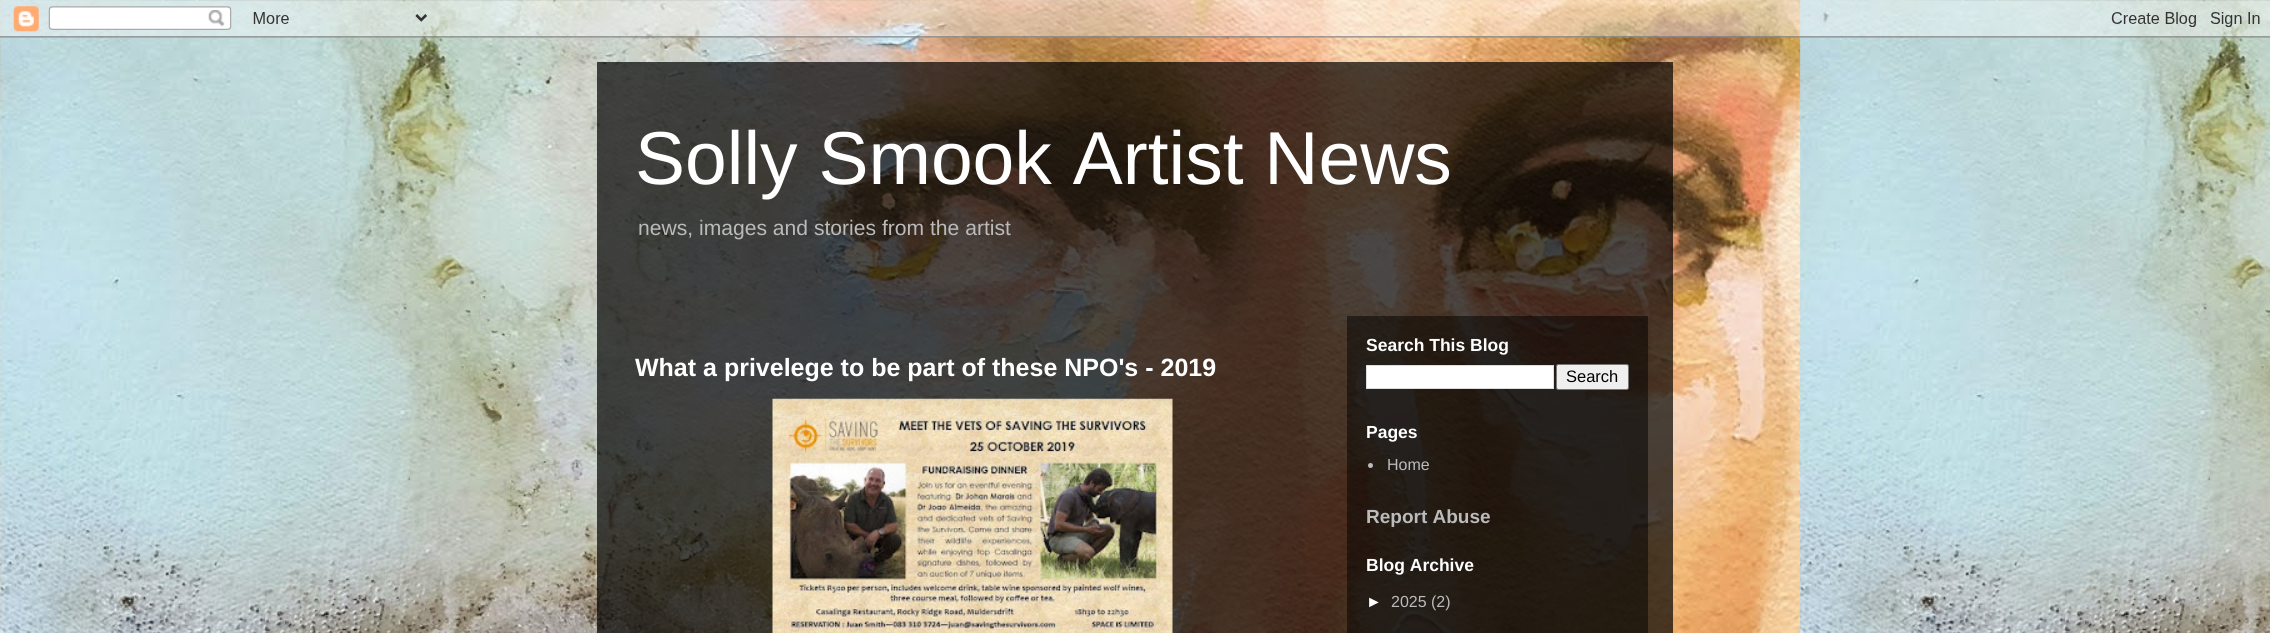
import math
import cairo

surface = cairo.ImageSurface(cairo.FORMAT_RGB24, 2270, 633)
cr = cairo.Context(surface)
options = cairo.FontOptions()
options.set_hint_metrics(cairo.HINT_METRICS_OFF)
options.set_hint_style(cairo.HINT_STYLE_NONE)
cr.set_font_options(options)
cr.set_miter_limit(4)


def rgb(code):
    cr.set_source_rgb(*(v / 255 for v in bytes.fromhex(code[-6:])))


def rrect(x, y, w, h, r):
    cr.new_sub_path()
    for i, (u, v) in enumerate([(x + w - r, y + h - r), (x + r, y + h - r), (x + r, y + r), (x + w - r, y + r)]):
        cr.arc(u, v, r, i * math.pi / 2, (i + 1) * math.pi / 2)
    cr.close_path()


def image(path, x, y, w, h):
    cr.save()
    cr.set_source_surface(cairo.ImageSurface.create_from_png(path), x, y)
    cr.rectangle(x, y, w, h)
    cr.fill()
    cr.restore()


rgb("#ffffff")
cr.paint()
image("img/1.png", 0, 0, 2270, 633)
image("img/2.png", 0, 0, 2270, 38)
cr.set_source_rgba(0, 0, 0, 0.7)
cr.rectangle(597, 62, 1076, 571)
cr.fill()
cr.set_source_rgba(0, 0, 0, 0.5)
cr.rectangle(1347, 316, 301, 317)
cr.fill()
image("img/3.png", 772, 398, 401, 235)
rgb("#ffffff")
cr.rectangle(1366.5, 365.5, 187, 23)
cr.fill_preserve()
rgb("#dddddd")
cr.set_line_width(1)
cr.stroke()
rgb("#efefef")
rrect(1556.5, 364.5, 72, 25, 2)
cr.fill_preserve()
rgb("#767676")
cr.stroke()
rgb("#bbbbbb")
cr.arc(1370.5, 465.5, 2.5, 0, 2 * math.pi)
cr.fill()
cr.select_font_face("Liberation Sans")
cr.set_font_size(75)
rgb("#ffffff")
cr.move_to(635, 184)
cr.show_text("Solly Smook Artist News")
cr.set_font_size(21.1)
rgb("#bbbbbb")
cr.move_to(638, 235)
cr.show_text("news, images and stories from the artist")
cr.select_font_face("Liberation Sans", cairo.FONT_SLANT_NORMAL, cairo.FONT_WEIGHT_BOLD)
cr.set_font_size(25)
rgb("#ffffff")
cr.move_to(635, 376)
cr.show_text("What a privelege to be part of these NPO's - 2019")
cr.set_font_size(17.5)
cr.move_to(1366, 351)
cr.show_text("Search This Blog")
cr.select_font_face("Liberation Sans")
cr.set_font_size(16.5)
rgb("#000000")
cr.move_to(1566, 382)
cr.show_text("Search")
cr.select_font_face("Liberation Sans", cairo.FONT_SLANT_NORMAL, cairo.FONT_WEIGHT_BOLD)
cr.set_font_size(17.5)
rgb("#ffffff")
cr.move_to(1366, 438)
cr.show_text("Pages")
cr.select_font_face("Liberation Sans")
cr.set_font_size(16)
rgb("#bbbbbb")
cr.move_to(1387, 470)
cr.show_text("Home")
cr.select_font_face("Liberation Sans", cairo.FONT_SLANT_NORMAL, cairo.FONT_WEIGHT_BOLD)
cr.set_font_size(19)
cr.move_to(1366, 523)
cr.show_text("Report Abuse")
cr.set_font_size(17.5)
rgb("#ffffff")
cr.move_to(1366, 571)
cr.show_text("Blog Archive")
cr.select_font_face("Liberation Sans")
cr.set_font_size(16)
cr.move_to(1366, 607)
cr.show_text("►")
rgb("#bbbbbb")
cr.move_to(1391, 607)
cr.show_text("2025 (2)")
surface.write_to_png("page.png")
